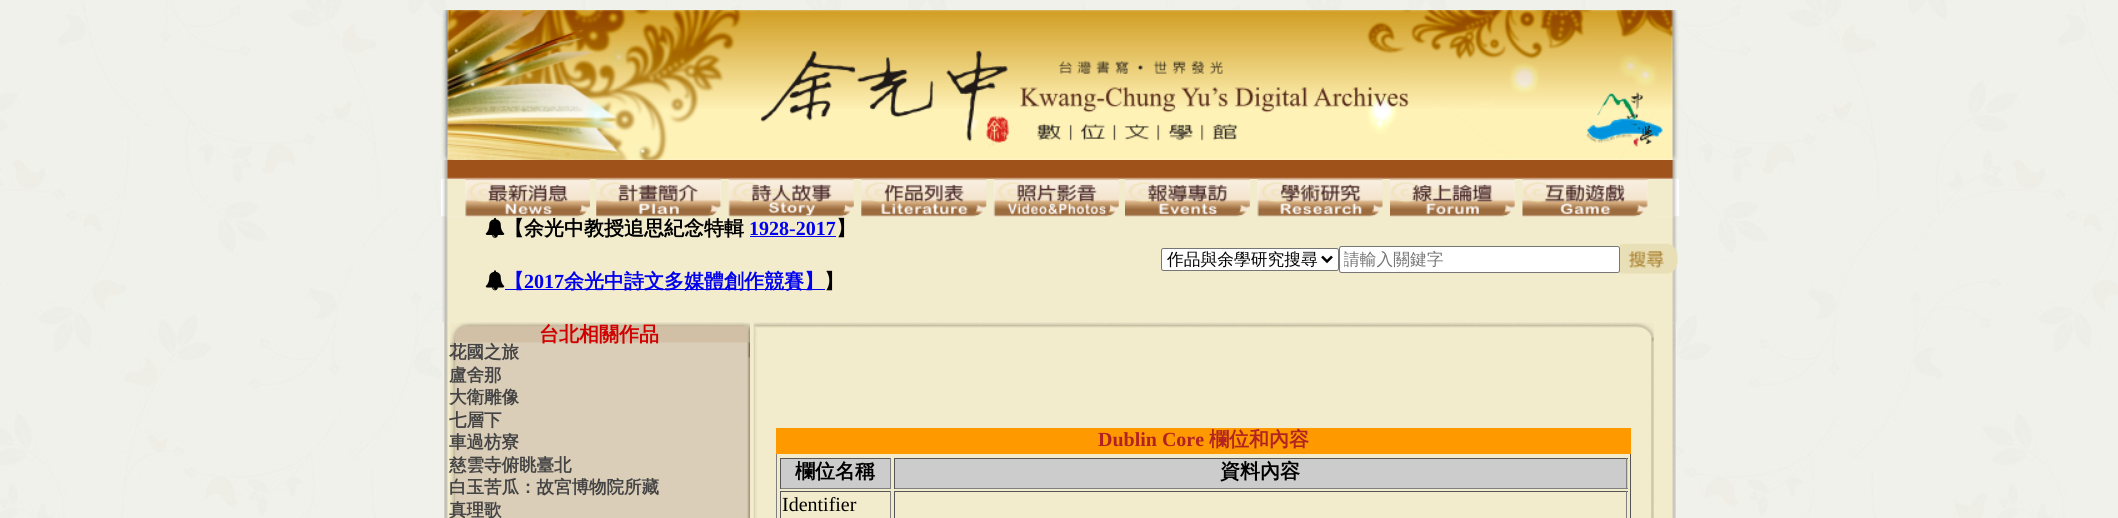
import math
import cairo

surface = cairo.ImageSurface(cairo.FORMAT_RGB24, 2118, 518)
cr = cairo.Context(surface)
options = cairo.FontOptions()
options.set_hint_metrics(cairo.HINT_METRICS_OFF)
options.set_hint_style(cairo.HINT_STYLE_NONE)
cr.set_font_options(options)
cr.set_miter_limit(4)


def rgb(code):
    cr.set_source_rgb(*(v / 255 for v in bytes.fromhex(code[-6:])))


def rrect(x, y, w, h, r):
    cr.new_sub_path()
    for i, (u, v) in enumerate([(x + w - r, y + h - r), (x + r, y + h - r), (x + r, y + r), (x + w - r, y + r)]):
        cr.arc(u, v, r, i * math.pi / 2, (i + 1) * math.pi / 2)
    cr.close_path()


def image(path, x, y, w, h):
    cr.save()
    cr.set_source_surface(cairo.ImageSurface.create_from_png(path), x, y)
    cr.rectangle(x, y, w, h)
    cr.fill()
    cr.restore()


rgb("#ffffff")
cr.paint()
image("img/1.png", 0, 0, 2118, 518)
image("img/2.png", 441, 10, 1238, 150)
rgb("#ffffff")
cr.rectangle(441, 179, 1238, 37)
cr.fill()
image("img/4.png", 442, 178, 23, 39)
rgb("#f2ebcc")
cr.rectangle(465, 178, 1190, 39)
cr.fill()
image("img/14.png", 1655, 178, 23, 39)
image("img/3.png", 442, 160, 1235, 19)
image("img/15.png", 442, 216, 1235, 107)
image("img/5.png", 465, 178, 125, 39)
image("img/6.png", 596, 178, 126, 39)
image("img/7.png", 728, 178, 126, 39)
image("img/8.png", 861, 178, 126, 39)
image("img/9.png", 993, 178, 126, 39)
image("img/10.png", 1125, 178, 125, 39)
image("img/11.png", 1257, 178, 126, 39)
image("img/12.png", 1390, 178, 125, 39)
image("img/13.png", 1522, 178, 126, 39)
image("img/16.png", 485, 217, 20, 21)
rgb("#0000ee")
cr.rectangle(750, 236, 86, 1)
cr.fill()
image("img/17.png", 485, 270, 20, 21)
cr.rectangle(505, 289, 320, 1)
cr.fill()
rgb("#ffffff")
rrect(1161.5, 248.5, 177, 22, 2)
cr.fill_preserve()
rgb("#767676")
cr.set_line_width(1)
cr.stroke()
cr.new_path()
cr.move_to(1322, 256.5)
cr.line_to(1327, 261.5)
cr.line_to(1332, 256.5)
rgb("#000000")
cr.set_line_width(2.5)
cr.stroke()
rgb("#ffffff")
rrect(1339.5, 246.5, 280, 26, 2)
cr.fill_preserve()
rgb("#767676")
cr.set_line_width(1)
cr.stroke()
image("img/18.png", 1620, 243, 59, 31)
image("img/19.png", 444, 322, 1232, 196)
image("img/20.png", 450, 322, 300, 36)
image("img/21.png", 450, 342, 300, 176)
image("img/22.png", 753, 322, 901, 20)
image("img/23.png", 753, 337, 901, 181)
for x, y, w, h, color in [
    (1630, 454, 1, 64, "#555555"),
    (776, 454, 1, 64, "#808080"),
    (776, 428, 855, 26, "#ff9900"),
    (781, 459, 109, 29, "#cccccc"),
    (780, 458, 111, 1, "#555555"),
    (890, 458, 1, 31, "#808080"),
    (780, 488, 111, 1, "#808080"),
    (780, 458, 1, 31, "#555555"),
    (895, 459, 733, 29, "#cccccc"),
    (894, 458, 734, 1, "#555555"),
    (1626, 458, 1, 31, "#808080"),
    (894, 488, 734, 1, "#808080"),
    (894, 458, 1, 31, "#555555"),
    (780, 491, 111, 1, "#555555"),
    (890, 491, 1, 27, "#808080"),
    (780, 491, 1, 27, "#555555"),
    (894, 491, 734, 1, "#555555"),
    (1626, 491, 1, 27, "#808080"),
    (894, 491, 1, 27, "#555555"),
]:
    rgb(color)
    cr.rectangle(x, y, w, h)
    cr.fill()
cr.select_font_face("WenQuanYi Zen Hei", cairo.FONT_SLANT_NORMAL, cairo.FONT_WEIGHT_BOLD)
cr.set_font_size(20)
rgb("#000000")
cr.move_to(504, 235)
cr.show_text("【余光中教授追思紀念特輯")
cr.select_font_face("Liberation Serif", cairo.FONT_SLANT_NORMAL, cairo.FONT_WEIGHT_BOLD)
rgb("#0000ee")
cr.move_to(749, 235)
cr.show_text("1928-2017")
cr.select_font_face("WenQuanYi Zen Hei", cairo.FONT_SLANT_NORMAL, cairo.FONT_WEIGHT_BOLD)
rgb("#000000")
cr.move_to(836, 235)
cr.show_text("】")
rgb("#0000ee")
cr.move_to(504, 288)
cr.show_text("【")
cr.select_font_face("Liberation Serif", cairo.FONT_SLANT_NORMAL, cairo.FONT_WEIGHT_BOLD)
cr.move_to(524, 288)
cr.show_text("2017")
cr.select_font_face("WenQuanYi Zen Hei", cairo.FONT_SLANT_NORMAL, cairo.FONT_WEIGHT_BOLD)
cr.move_to(564, 288)
cr.show_text("余光中詩文多媒體創作競賽】")
rgb("#000000")
cr.move_to(824, 288)
cr.show_text("】")
cr.select_font_face("WenQuanYi Zen Hei Medium")
cr.set_font_size(16.75)
cr.move_to(1167, 265)
cr.show_text("作品與余學研究搜尋")
cr.save()
cr.rectangle(1344, 249, 271, 21)
cr.clip()
rgb("#757575")
cr.move_to(1343, 265)
cr.show_text("請輸入關鍵字")
cr.restore()
cr.select_font_face("WenQuanYi Zen Hei", cairo.FONT_SLANT_NORMAL, cairo.FONT_WEIGHT_BOLD)
cr.set_font_size(20)
rgb("#d00000")
cr.move_to(539, 341)
cr.show_text("台北相關作品")
cr.set_font_size(17.5)
rgb("#444444")
for x, y, s in [
    (449, 358, "花國之旅"),
    (449, 381, "盧舍那"),
    (449, 403, "大衛雕像"),
    (449, 426, "七層下"),
    (449, 448, "車過枋寮"),
    (449, 471, "慈雲寺俯眺臺北"),
    (449, 493, "白玉苦瓜：故宮博物院所藏"),
    (449, 516, "真理歌"),
]:
    cr.move_to(x, y)
    cr.show_text(s)
cr.select_font_face("Liberation Serif", cairo.FONT_SLANT_NORMAL, cairo.FONT_WEIGHT_BOLD)
cr.set_font_size(20)
rgb("#b22222")
cr.move_to(1098, 446)
cr.show_text("Dublin Core")
cr.select_font_face("WenQuanYi Zen Hei", cairo.FONT_SLANT_NORMAL, cairo.FONT_WEIGHT_BOLD)
cr.move_to(1209, 446)
cr.show_text("欄位和內容")
rgb("#000000")
cr.move_to(795, 478)
cr.show_text("欄位名稱")
cr.move_to(1220, 478)
cr.show_text("資料內容")
cr.select_font_face("Liberation Serif")
cr.move_to(782, 511)
cr.show_text("Identifier")
surface.write_to_png("page.png")
